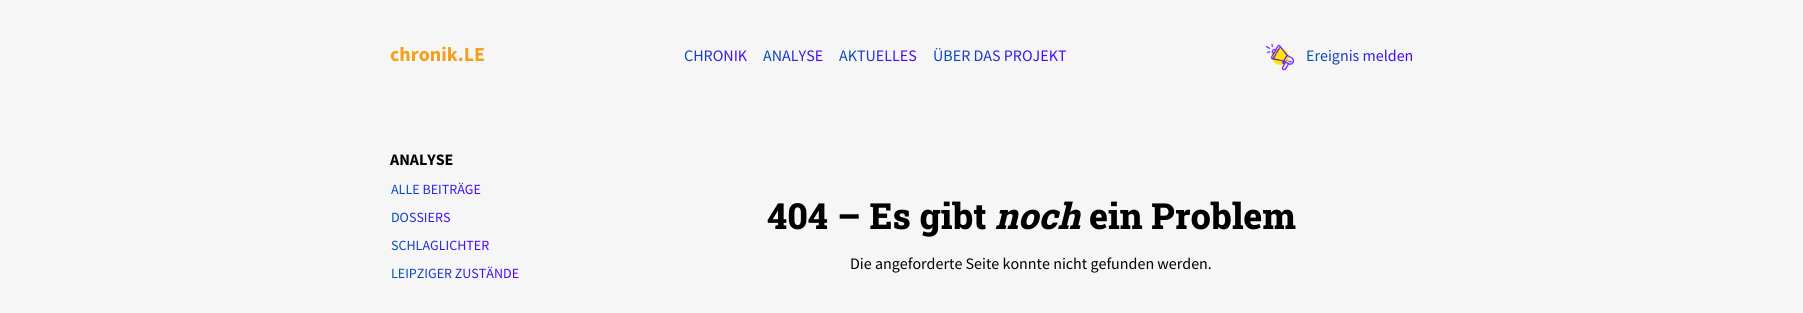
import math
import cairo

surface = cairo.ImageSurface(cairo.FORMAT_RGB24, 1803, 313)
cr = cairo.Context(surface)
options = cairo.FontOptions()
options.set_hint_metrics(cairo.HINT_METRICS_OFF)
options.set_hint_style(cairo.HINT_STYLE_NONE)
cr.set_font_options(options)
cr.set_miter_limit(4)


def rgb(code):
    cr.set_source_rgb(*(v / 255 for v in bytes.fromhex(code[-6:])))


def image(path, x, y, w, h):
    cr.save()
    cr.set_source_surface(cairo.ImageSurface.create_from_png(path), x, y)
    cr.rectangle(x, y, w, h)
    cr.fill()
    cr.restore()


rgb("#f6f6f6")
cr.paint()
image("img/1.png", 1266, 43, 28, 28)
cr.select_font_face("Source Sans Pro", cairo.FONT_SLANT_NORMAL, cairo.FONT_WEIGHT_BOLD)
cr.set_font_size(20)
rgb("#f4a01a")
cr.move_to(390, 61)
cr.show_text("chronik.LE")
cr.select_font_face("Source Sans Pro")
cr.set_font_size(16)
gradient = cairo.LinearGradient(684, 55, 747, 55)
gradient.add_color_stop_rgba(0, 0, 0.325, 0.71, 1)
gradient.add_color_stop_rgba(1, 0.322, 0, 1, 1)
cr.set_source(gradient)
cr.move_to(684, 61)
cr.show_text("CHRONIK")
gradient = cairo.LinearGradient(763, 55, 823, 55)
gradient.add_color_stop_rgba(0, 0, 0.325, 0.71, 1)
gradient.add_color_stop_rgba(1, 0.322, 0, 1, 1)
cr.set_source(gradient)
cr.move_to(763, 61)
cr.show_text("ANALYSE")
gradient = cairo.LinearGradient(839, 55, 917, 55)
gradient.add_color_stop_rgba(0, 0, 0.325, 0.71, 1)
gradient.add_color_stop_rgba(1, 0.322, 0, 1, 1)
cr.set_source(gradient)
cr.move_to(839, 61)
cr.show_text("AKTUELLES")
gradient = cairo.LinearGradient(933, 55, 1067, 55)
gradient.add_color_stop_rgba(0, 0, 0.325, 0.71, 1)
gradient.add_color_stop_rgba(1, 0.322, 0, 1, 1)
cr.set_source(gradient)
cr.move_to(933, 61)
cr.show_text("ÜBER DAS PROJEKT")
gradient = cairo.LinearGradient(1306, 55, 1414, 55)
gradient.add_color_stop_rgba(0, 0, 0.325, 0.71, 1)
gradient.add_color_stop_rgba(1, 0.322, 0, 1, 1)
cr.set_source(gradient)
cr.move_to(1306, 61)
cr.show_text("Ereignis melden")
cr.select_font_face("Source Sans Pro", cairo.FONT_SLANT_NORMAL, cairo.FONT_WEIGHT_BOLD)
rgb("#000000")
cr.move_to(390, 165)
cr.show_text("ANALYSE")
cr.select_font_face("Source Sans Pro")
cr.set_font_size(14)
gradient = cairo.LinearGradient(391, 189, 480, 189)
gradient.add_color_stop_rgba(0, 0, 0.325, 0.71, 1)
gradient.add_color_stop_rgba(1, 0.322, 0, 1, 1)
cr.set_source(gradient)
cr.move_to(391, 194)
cr.show_text("ALLE BEITRÄGE")
gradient = cairo.LinearGradient(391, 217, 450, 217)
gradient.add_color_stop_rgba(0, 0, 0.325, 0.71, 1)
gradient.add_color_stop_rgba(1, 0.322, 0, 1, 1)
cr.set_source(gradient)
cr.move_to(391, 222)
cr.show_text("DOSSIERS")
gradient = cairo.LinearGradient(391, 245, 489, 245)
gradient.add_color_stop_rgba(0, 0, 0.325, 0.71, 1)
gradient.add_color_stop_rgba(1, 0.322, 0, 1, 1)
cr.set_source(gradient)
cr.move_to(391, 250)
cr.show_text("SCHLAGLICHTER")
gradient = cairo.LinearGradient(391, 273, 519, 273)
gradient.add_color_stop_rgba(0, 0, 0.325, 0.71, 1)
gradient.add_color_stop_rgba(1, 0.322, 0, 1, 1)
cr.set_source(gradient)
cr.move_to(391, 278)
cr.show_text("LEIPZIGER ZUSTÄNDE")
cr.select_font_face("Roboto Slab ExtraBold")
cr.set_font_size(36)
rgb("#000000")
cr.move_to(767, 229)
cr.show_text("404 – Es gibt")
cr.select_font_face("Roboto Slab ExtraBold", cairo.FONT_SLANT_ITALIC)
cr.move_to(995, 229)
cr.show_text("noch")
cr.select_font_face("Roboto Slab ExtraBold")
cr.move_to(1089, 229)
cr.show_text("ein Problem")
cr.select_font_face("Source Sans Pro")
cr.set_font_size(16)
cr.move_to(850, 269)
cr.show_text("Die angeforderte Seite konnte nicht gefunden werden.")
surface.write_to_png("page.png")
